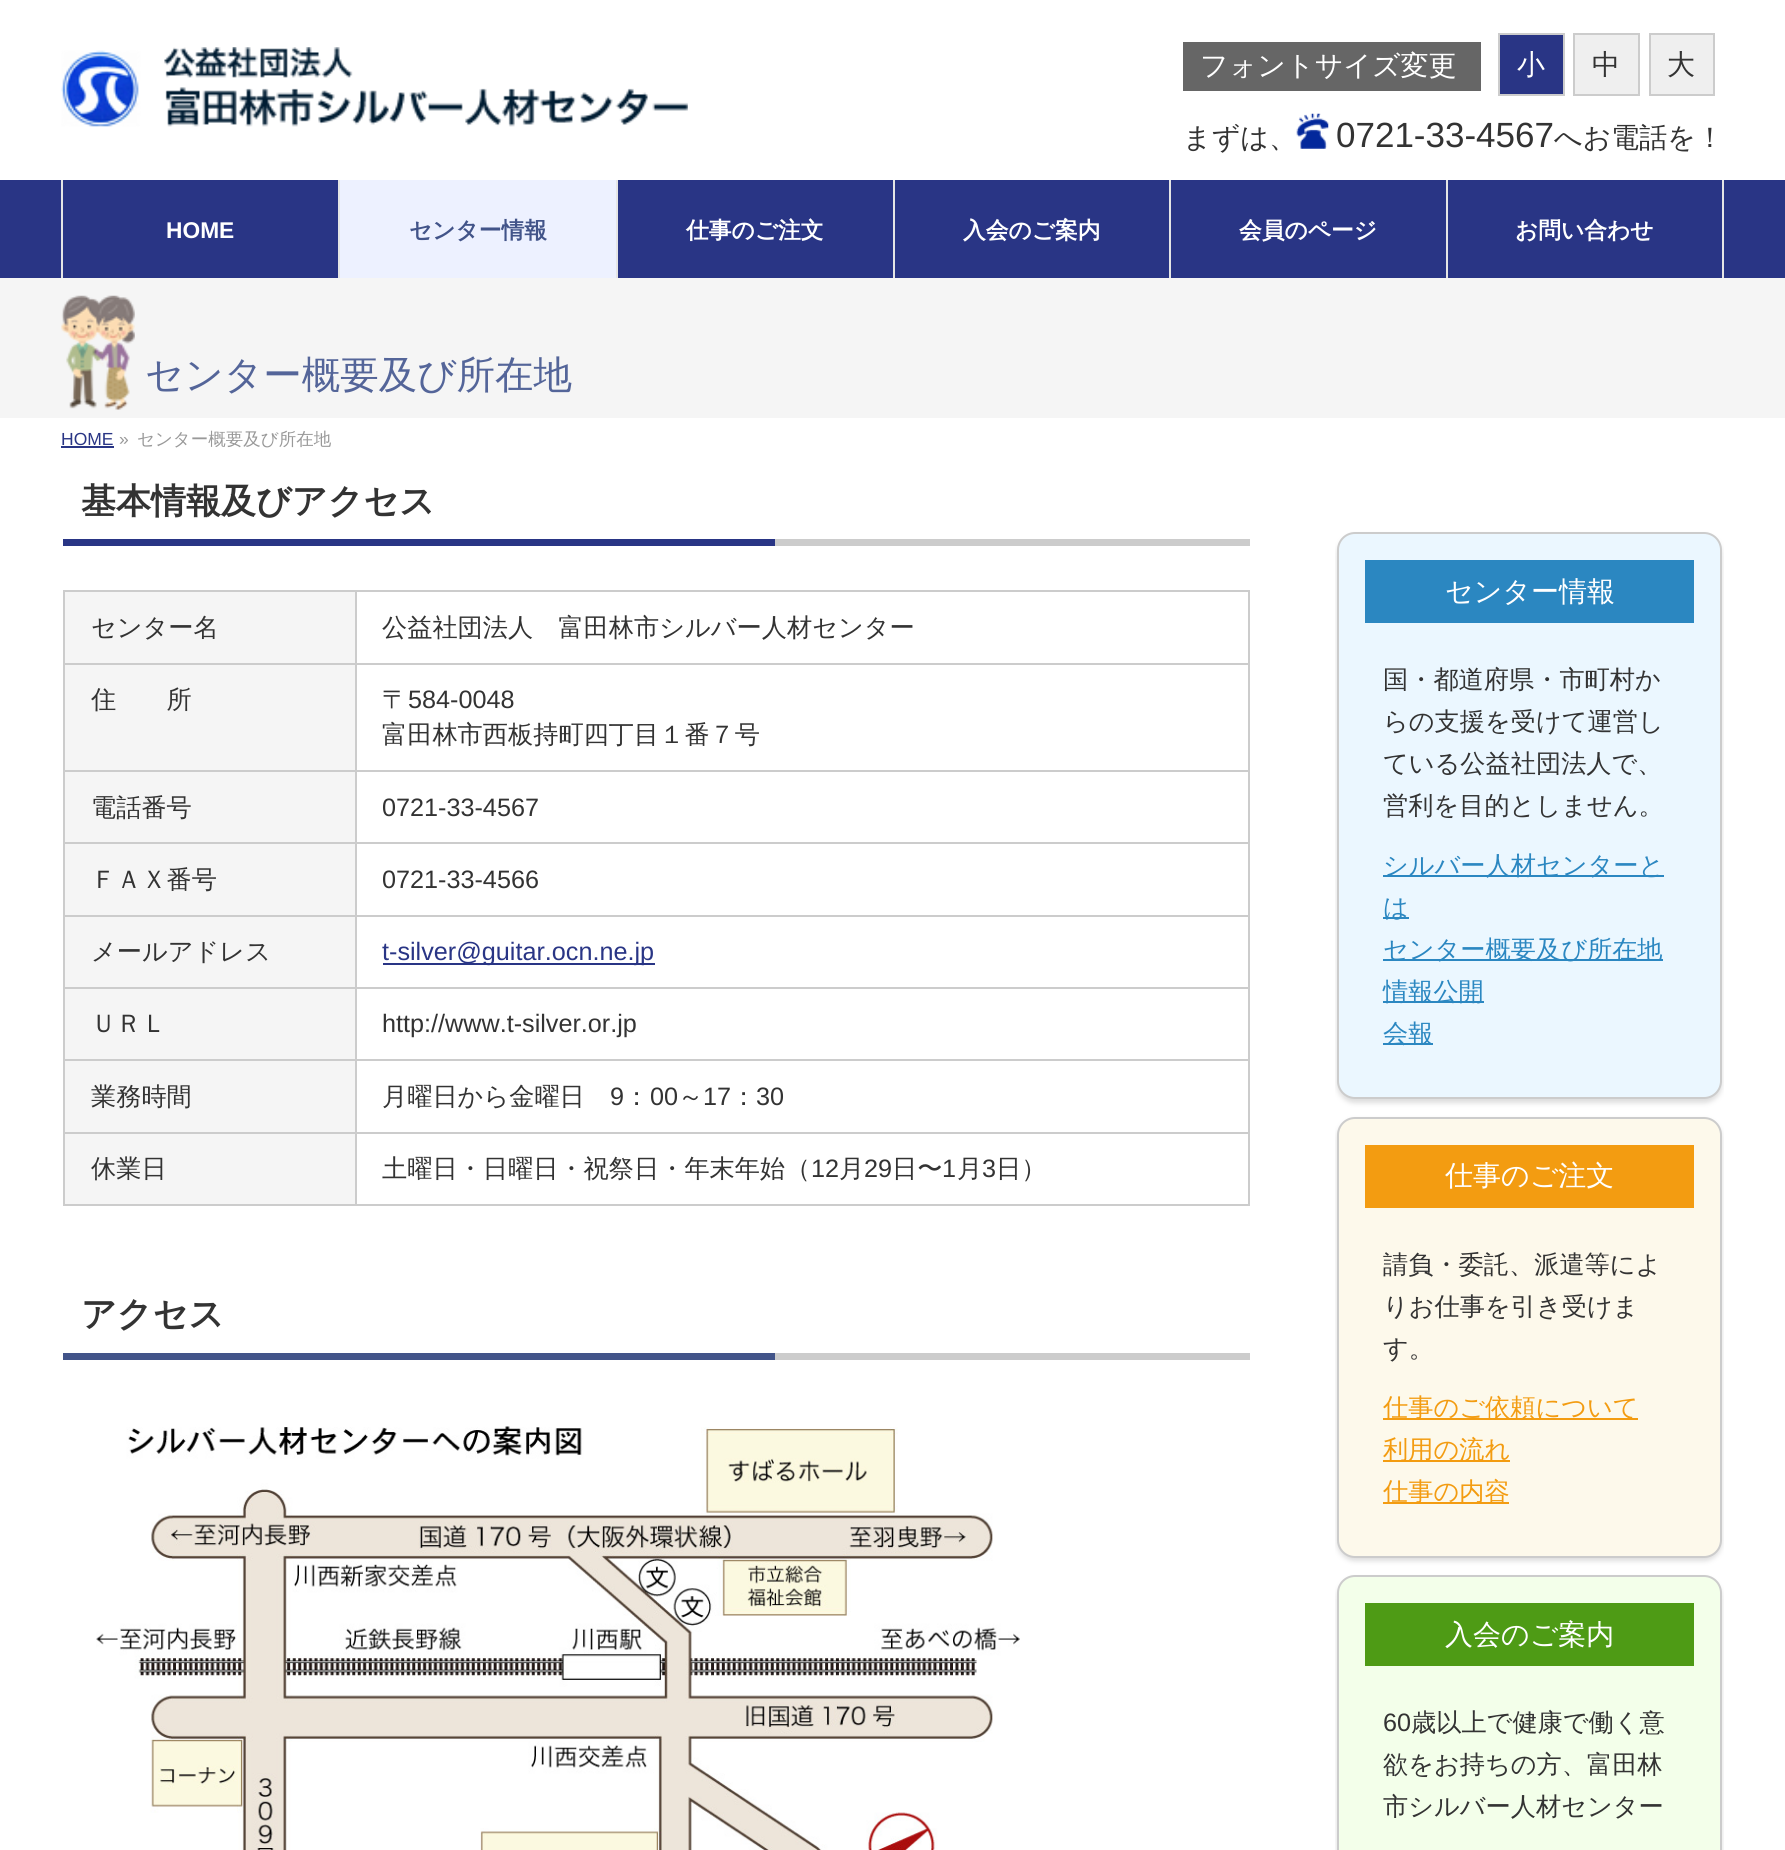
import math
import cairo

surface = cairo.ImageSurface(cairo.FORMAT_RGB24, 1785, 1850)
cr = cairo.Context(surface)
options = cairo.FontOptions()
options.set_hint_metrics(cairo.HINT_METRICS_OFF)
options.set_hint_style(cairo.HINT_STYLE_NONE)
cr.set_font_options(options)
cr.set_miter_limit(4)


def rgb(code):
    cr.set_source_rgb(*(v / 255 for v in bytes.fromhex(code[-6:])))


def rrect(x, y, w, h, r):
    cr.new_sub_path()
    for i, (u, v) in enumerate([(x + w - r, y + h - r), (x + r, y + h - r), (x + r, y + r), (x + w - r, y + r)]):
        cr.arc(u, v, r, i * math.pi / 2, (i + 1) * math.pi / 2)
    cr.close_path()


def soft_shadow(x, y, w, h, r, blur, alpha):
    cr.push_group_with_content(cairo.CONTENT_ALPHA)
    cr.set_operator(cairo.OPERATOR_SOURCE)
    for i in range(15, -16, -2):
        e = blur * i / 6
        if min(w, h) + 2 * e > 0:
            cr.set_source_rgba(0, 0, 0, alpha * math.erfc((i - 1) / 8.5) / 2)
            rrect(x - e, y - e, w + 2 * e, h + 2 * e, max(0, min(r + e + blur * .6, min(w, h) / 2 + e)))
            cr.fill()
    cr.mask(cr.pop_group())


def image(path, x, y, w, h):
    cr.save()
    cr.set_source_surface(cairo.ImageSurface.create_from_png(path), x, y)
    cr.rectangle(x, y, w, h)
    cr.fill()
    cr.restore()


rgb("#ffffff")
cr.paint()
image("img/1.png", 61, 47, 627, 80)
rgb("#666666")
cr.rectangle(1183, 42, 298, 49)
cr.fill()
rgb("#293585")
cr.rectangle(1499, 34, 65, 61)
cr.fill_preserve()
rgb("#cccccc")
cr.stroke()
rgb("#efefef")
cr.rectangle(1574, 34, 65, 61)
cr.fill_preserve()
rgb("#cccccc")
cr.stroke()
rgb("#efefef")
cr.rectangle(1650, 34, 64, 61)
cr.fill_preserve()
rgb("#cccccc")
cr.stroke()
image("img/2.png", 1296, 113, 33, 36)
for x, y, w, h, color in [
    (0, 180, 1785, 98, "#293585"),
    (61, 180, 2, 98, "#e5e5e5"),
    (338, 180, 2, 98, "#e5e5e5"),
    (340, 180, 276, 98, "#edf1ff"),
    (616, 180, 2, 98, "#e5e5e5"),
    (893, 180, 2, 98, "#e5e5e5"),
    (1169, 180, 2, 98, "#e5e5e5"),
    (1446, 180, 2, 98, "#e5e5e5"),
    (1722, 180, 2, 98, "#e5e5e5"),
    (0, 278, 1785, 140, "#f5f5f5"),
]:
    rgb(color)
    cr.rectangle(x, y, w, h)
    cr.fill()
image("img/3.png", 61, 295, 74, 115)
for x, y, w, h, color in [
    (61, 446, 53, 2, "#293585"),
    (775, 539, 475, 7, "#cccccc"),
    (63, 539, 712, 7, "#293585"),
    (63, 590, 1187, 2, "#cccccc"),
    (65, 592, 290, 71, "#f5f5f5"),
    (355, 663, 895, 2, "#cccccc"),
    (355, 770, 895, 2, "#cccccc"),
    (355, 842, 895, 2, "#cccccc"),
    (355, 915, 895, 2, "#cccccc"),
    (355, 987, 895, 2, "#cccccc"),
    (355, 1059, 895, 2, "#cccccc"),
    (355, 1132, 895, 2, "#cccccc"),
    (1248, 1132, 2, 74, "#cccccc"),
    (355, 1204, 895, 2, "#cccccc"),
    (355, 1132, 2, 74, "#cccccc"),
    (63, 1132, 294, 2, "#cccccc"),
    (355, 1059, 2, 75, "#cccccc"),
    (63, 1059, 294, 2, "#cccccc"),
    (355, 987, 2, 74, "#cccccc"),
    (63, 987, 294, 2, "#cccccc"),
    (355, 915, 2, 74, "#cccccc"),
    (63, 915, 294, 2, "#cccccc"),
    (355, 842, 2, 75, "#cccccc"),
    (63, 842, 294, 2, "#cccccc"),
    (355, 770, 2, 74, "#cccccc"),
    (63, 770, 294, 2, "#cccccc"),
    (355, 663, 2, 109, "#cccccc"),
    (63, 663, 294, 2, "#cccccc"),
    (355, 590, 2, 75, "#cccccc"),
    (65, 665, 290, 105, "#f5f5f5"),
    (63, 1204, 294, 2, "#cccccc"),
    (63, 1132, 2, 74, "#cccccc"),
    (63, 1059, 2, 75, "#cccccc"),
    (63, 987, 2, 74, "#cccccc"),
    (63, 915, 2, 74, "#cccccc"),
    (63, 842, 2, 75, "#cccccc"),
    (63, 770, 2, 74, "#cccccc"),
    (63, 590, 2, 182, "#cccccc"),
    (1248, 1059, 2, 75, "#cccccc"),
    (1248, 987, 2, 74, "#cccccc"),
    (1248, 915, 2, 74, "#cccccc"),
    (1248, 842, 2, 75, "#cccccc"),
    (1248, 770, 2, 74, "#cccccc"),
    (1248, 590, 2, 182, "#cccccc"),
    (65, 772, 290, 70, "#f5f5f5"),
    (65, 844, 290, 71, "#f5f5f5"),
    (65, 917, 290, 70, "#f5f5f5"),
    (383, 963, 272, 2, "#293585"),
    (65, 989, 290, 70, "#f5f5f5"),
    (65, 1061, 290, 71, "#f5f5f5"),
    (65, 1134, 290, 70, "#f5f5f5"),
    (775, 1353, 475, 7, "#cccccc"),
    (63, 1353, 712, 7, "#425489"),
]:
    rgb(color)
    cr.rectangle(x, y, w, h)
    cr.fill()
image("img/4.png", 96, 1426, 924, 424)
cr.save()
cr.rectangle(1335, 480, 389, 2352)
cr.clip()
rgb("#dddddd")
soft_shadow(1337, 536, 385, 567, 18, 2.5, 1)
cr.restore()
rgb("#ebf7ff")
rrect(1338, 533, 383, 565, 17)
cr.fill_preserve()
rgb("#cccccc")
cr.stroke()
for x, y, w, h, color in [
    (1365, 560, 329, 63, "#2b87c1"),
    (1383, 875, 281, 2, "#2b87c1"),
    (1383, 917, 26, 2, "#2b87c1"),
    (1383, 959, 280, 2, "#2b87c1"),
    (1383, 1001, 101, 2, "#2b87c1"),
    (1383, 1043, 50, 2, "#2b87c1"),
]:
    rgb(color)
    cr.rectangle(x, y, w, h)
    cr.fill()
cr.save()
cr.rectangle(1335, 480, 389, 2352)
cr.clip()
rgb("#dddddd")
soft_shadow(1337, 1120, 385, 441, 18, 2.5, 1)
cr.restore()
rgb("#fdf9eb")
rrect(1338, 1118, 383, 439, 17)
cr.fill_preserve()
rgb("#cccccc")
cr.stroke()
for x, y, w, h, color in [
    (1365, 1145, 329, 63, "#f39c11"),
    (1383, 1418, 255, 2, "#f39c11"),
    (1383, 1460, 127, 2, "#f39c11"),
    (1383, 1502, 126, 2, "#f39c11"),
]:
    rgb(color)
    cr.rectangle(x, y, w, h)
    cr.fill()
cr.save()
cr.rectangle(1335, 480, 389, 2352)
cr.clip()
rgb("#dddddd")
soft_shadow(1337, 1579, 385, 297, 18, 2.5, 1)
cr.restore()
rgb("#f3ffea")
rrect(1338, 1576, 383, 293, 17)
cr.fill_preserve()
rgb("#cccccc")
cr.stroke()
rgb("#4e9b15")
cr.rectangle(1365, 1603, 329, 63)
cr.fill()
cr.select_font_face("WenQuanYi Zen Hei Medium")
cr.set_font_size(28)
rgb("#ffffff")
cr.move_to(1200, 75)
cr.show_text("フォントサイズ変更")
cr.move_to(1517, 74)
cr.show_text("小")
rgb("#333333")
for x, y, s in [
    (1592, 74, "中"),
    (1667, 74, "大"),
    (1183, 147, "まずは、"),
]:
    cr.move_to(x, y)
    cr.show_text(s)
cr.select_font_face("Liberation Sans")
cr.set_font_size(35)
cr.move_to(1336, 147)
cr.show_text("0721-33-4567")
cr.select_font_face("WenQuanYi Zen Hei Medium")
cr.set_font_size(28)
cr.move_to(1554, 147)
cr.show_text("へお電話を！")
cr.select_font_face("Liberation Sans", cairo.FONT_SLANT_NORMAL, cairo.FONT_WEIGHT_BOLD)
cr.set_font_size(22.75)
rgb("#ffffff")
cr.move_to(166, 238)
cr.show_text("HOME")
cr.select_font_face("WenQuanYi Zen Hei", cairo.FONT_SLANT_NORMAL, cairo.FONT_WEIGHT_BOLD)
rgb("#425489")
cr.move_to(409, 238)
cr.show_text("センター情報")
rgb("#ffffff")
for x, y, s in [
    (686, 238, "仕事のご注文"),
    (963, 238, "入会のご案内"),
    (1239, 238, "会員のページ"),
    (1515, 238, "お問い合わせ"),
]:
    cr.move_to(x, y)
    cr.show_text(s)
cr.select_font_face("WenQuanYi Zen Hei Medium")
cr.set_font_size(38.5)
rgb("#546599")
cr.move_to(145, 388)
cr.show_text("センター概要及び所在地")
cr.select_font_face("Liberation Sans")
cr.set_font_size(17.5)
rgb("#293585")
cr.move_to(61, 445)
cr.show_text("HOME")
rgb("#999999")
cr.move_to(119, 445)
cr.show_text("»")
cr.select_font_face("WenQuanYi Zen Hei Medium")
cr.move_to(137, 445)
cr.show_text("センター概要及び所在地")
cr.select_font_face("WenQuanYi Zen Hei", cairo.FONT_SLANT_NORMAL, cairo.FONT_WEIGHT_BOLD)
cr.set_font_size(35)
rgb("#333333")
cr.move_to(81, 513)
cr.show_text("基本情報及びアクセス")
cr.select_font_face("WenQuanYi Zen Hei Medium")
cr.set_font_size(25.2)
for x, y, s in [
    (91, 636, "センター名"),
    (382, 636, "公益社団法人　富田林市シルバー人材センター"),
    (91, 708, "住　　所"),
    (382, 708, "〒"),
]:
    cr.move_to(x, y)
    cr.show_text(s)
cr.select_font_face("Liberation Sans")
cr.move_to(408, 708)
cr.show_text("584-0048")
cr.select_font_face("WenQuanYi Zen Hei Medium")
cr.move_to(382, 743)
cr.show_text("富田林市西板持町四丁目１番７号")
cr.move_to(91, 816)
cr.show_text("電話番号")
cr.select_font_face("Liberation Sans")
cr.move_to(382, 816)
cr.show_text("0721-33-4567")
cr.select_font_face("WenQuanYi Zen Hei Medium")
cr.move_to(91, 888)
cr.show_text("ＦＡＸ番号")
cr.select_font_face("Liberation Sans")
cr.move_to(382, 888)
cr.show_text("0721-33-4566")
cr.select_font_face("WenQuanYi Zen Hei Medium")
cr.move_to(91, 960)
cr.show_text("メールアドレス")
cr.select_font_face("Liberation Sans")
rgb("#293585")
cr.move_to(382, 960)
cr.show_text("t-silver@guitar.ocn.ne.jp")
cr.select_font_face("WenQuanYi Zen Hei Medium")
rgb("#333333")
cr.move_to(91, 1032)
cr.show_text("ＵＲＬ")
cr.select_font_face("Liberation Sans")
cr.move_to(382, 1032)
cr.show_text("http://www.t-silver.or.jp")
cr.select_font_face("WenQuanYi Zen Hei Medium")
cr.move_to(91, 1105)
cr.show_text("業務時間")
cr.move_to(382, 1105)
cr.show_text("月曜日から金曜日")
cr.select_font_face("Liberation Sans")
cr.move_to(610, 1105)
cr.show_text("9")
cr.select_font_face("WenQuanYi Zen Hei Medium")
cr.move_to(624, 1105)
cr.show_text("：")
cr.select_font_face("Liberation Sans")
cr.move_to(650, 1105)
cr.show_text("00")
cr.select_font_face("WenQuanYi Zen Hei Medium")
cr.move_to(678, 1105)
cr.show_text("～")
cr.select_font_face("Liberation Sans")
cr.move_to(703, 1105)
cr.show_text("17")
cr.select_font_face("WenQuanYi Zen Hei Medium")
cr.move_to(731, 1105)
cr.show_text("：")
cr.select_font_face("Liberation Sans")
cr.move_to(756, 1105)
cr.show_text("30")
cr.select_font_face("WenQuanYi Zen Hei Medium")
cr.move_to(91, 1177)
cr.show_text("休業日")
cr.move_to(382, 1177)
cr.show_text("土曜日・日曜日・祝祭日・年末年始（")
cr.select_font_face("Liberation Sans")
cr.move_to(811, 1177)
cr.show_text("12")
cr.select_font_face("WenQuanYi Zen Hei Medium")
cr.move_to(839, 1177)
cr.show_text("月")
cr.select_font_face("Liberation Sans")
cr.move_to(864, 1177)
cr.show_text("29")
cr.select_font_face("WenQuanYi Zen Hei Medium")
cr.move_to(892, 1177)
cr.show_text("日〜")
cr.select_font_face("Liberation Sans")
cr.move_to(942, 1177)
cr.show_text("1")
cr.select_font_face("WenQuanYi Zen Hei Medium")
cr.move_to(957, 1177)
cr.show_text("月")
cr.select_font_face("Liberation Sans")
cr.move_to(982, 1177)
cr.show_text("3")
cr.select_font_face("WenQuanYi Zen Hei Medium")
cr.move_to(996, 1177)
cr.show_text("日）")
cr.select_font_face("WenQuanYi Zen Hei", cairo.FONT_SLANT_NORMAL, cairo.FONT_WEIGHT_BOLD)
cr.set_font_size(35)
cr.move_to(81, 1326)
cr.show_text("アクセス")
cr.select_font_face("WenQuanYi Zen Hei Medium")
cr.set_font_size(28)
rgb("#ffffff")
cr.move_to(1445, 601)
cr.show_text("センター情報")
cr.set_font_size(25.2)
rgb("#333333")
for x, y, s in [
    (1383, 688, "国・都道府県・市町村か"),
    (1383, 730, "らの支援を受けて運営し"),
    (1383, 772, "ている公益社団法人で、"),
    (1383, 814, "営利を目的としません。"),
]:
    cr.move_to(x, y)
    cr.show_text(s)
rgb("#2b87c1")
for x, y, s in [
    (1383, 874, "シルバー人材センターと"),
    (1383, 916, "は"),
    (1383, 958, "センター概要及び所在地"),
    (1383, 1000, "情報公開"),
    (1383, 1042, "会報"),
]:
    cr.move_to(x, y)
    cr.show_text(s)
cr.set_font_size(28)
rgb("#ffffff")
cr.move_to(1445, 1185)
cr.show_text("仕事のご注文")
cr.set_font_size(25.2)
rgb("#333333")
for x, y, s in [
    (1383, 1273, "請負・委託、派遣等によ"),
    (1383, 1315, "りお仕事を引き受けま"),
    (1383, 1357, "す。"),
]:
    cr.move_to(x, y)
    cr.show_text(s)
rgb("#f39c11")
for x, y, s in [
    (1383, 1416, "仕事のご依頼について"),
    (1383, 1458, "利用の流れ"),
    (1383, 1500, "仕事の内容"),
]:
    cr.move_to(x, y)
    cr.show_text(s)
cr.set_font_size(28)
rgb("#ffffff")
cr.move_to(1445, 1644)
cr.show_text("入会のご案内")
cr.select_font_face("Liberation Sans")
cr.set_font_size(25.2)
rgb("#333333")
cr.move_to(1383, 1731)
cr.show_text("60")
cr.select_font_face("WenQuanYi Zen Hei Medium")
for x, y, s in [
    (1411, 1731, "歳以上で健康で働く意"),
    (1383, 1773, "欲をお持ちの方、富田林"),
    (1383, 1815, "市シルバー人材センター"),
]:
    cr.move_to(x, y)
    cr.show_text(s)
surface.write_to_png("page.png")
